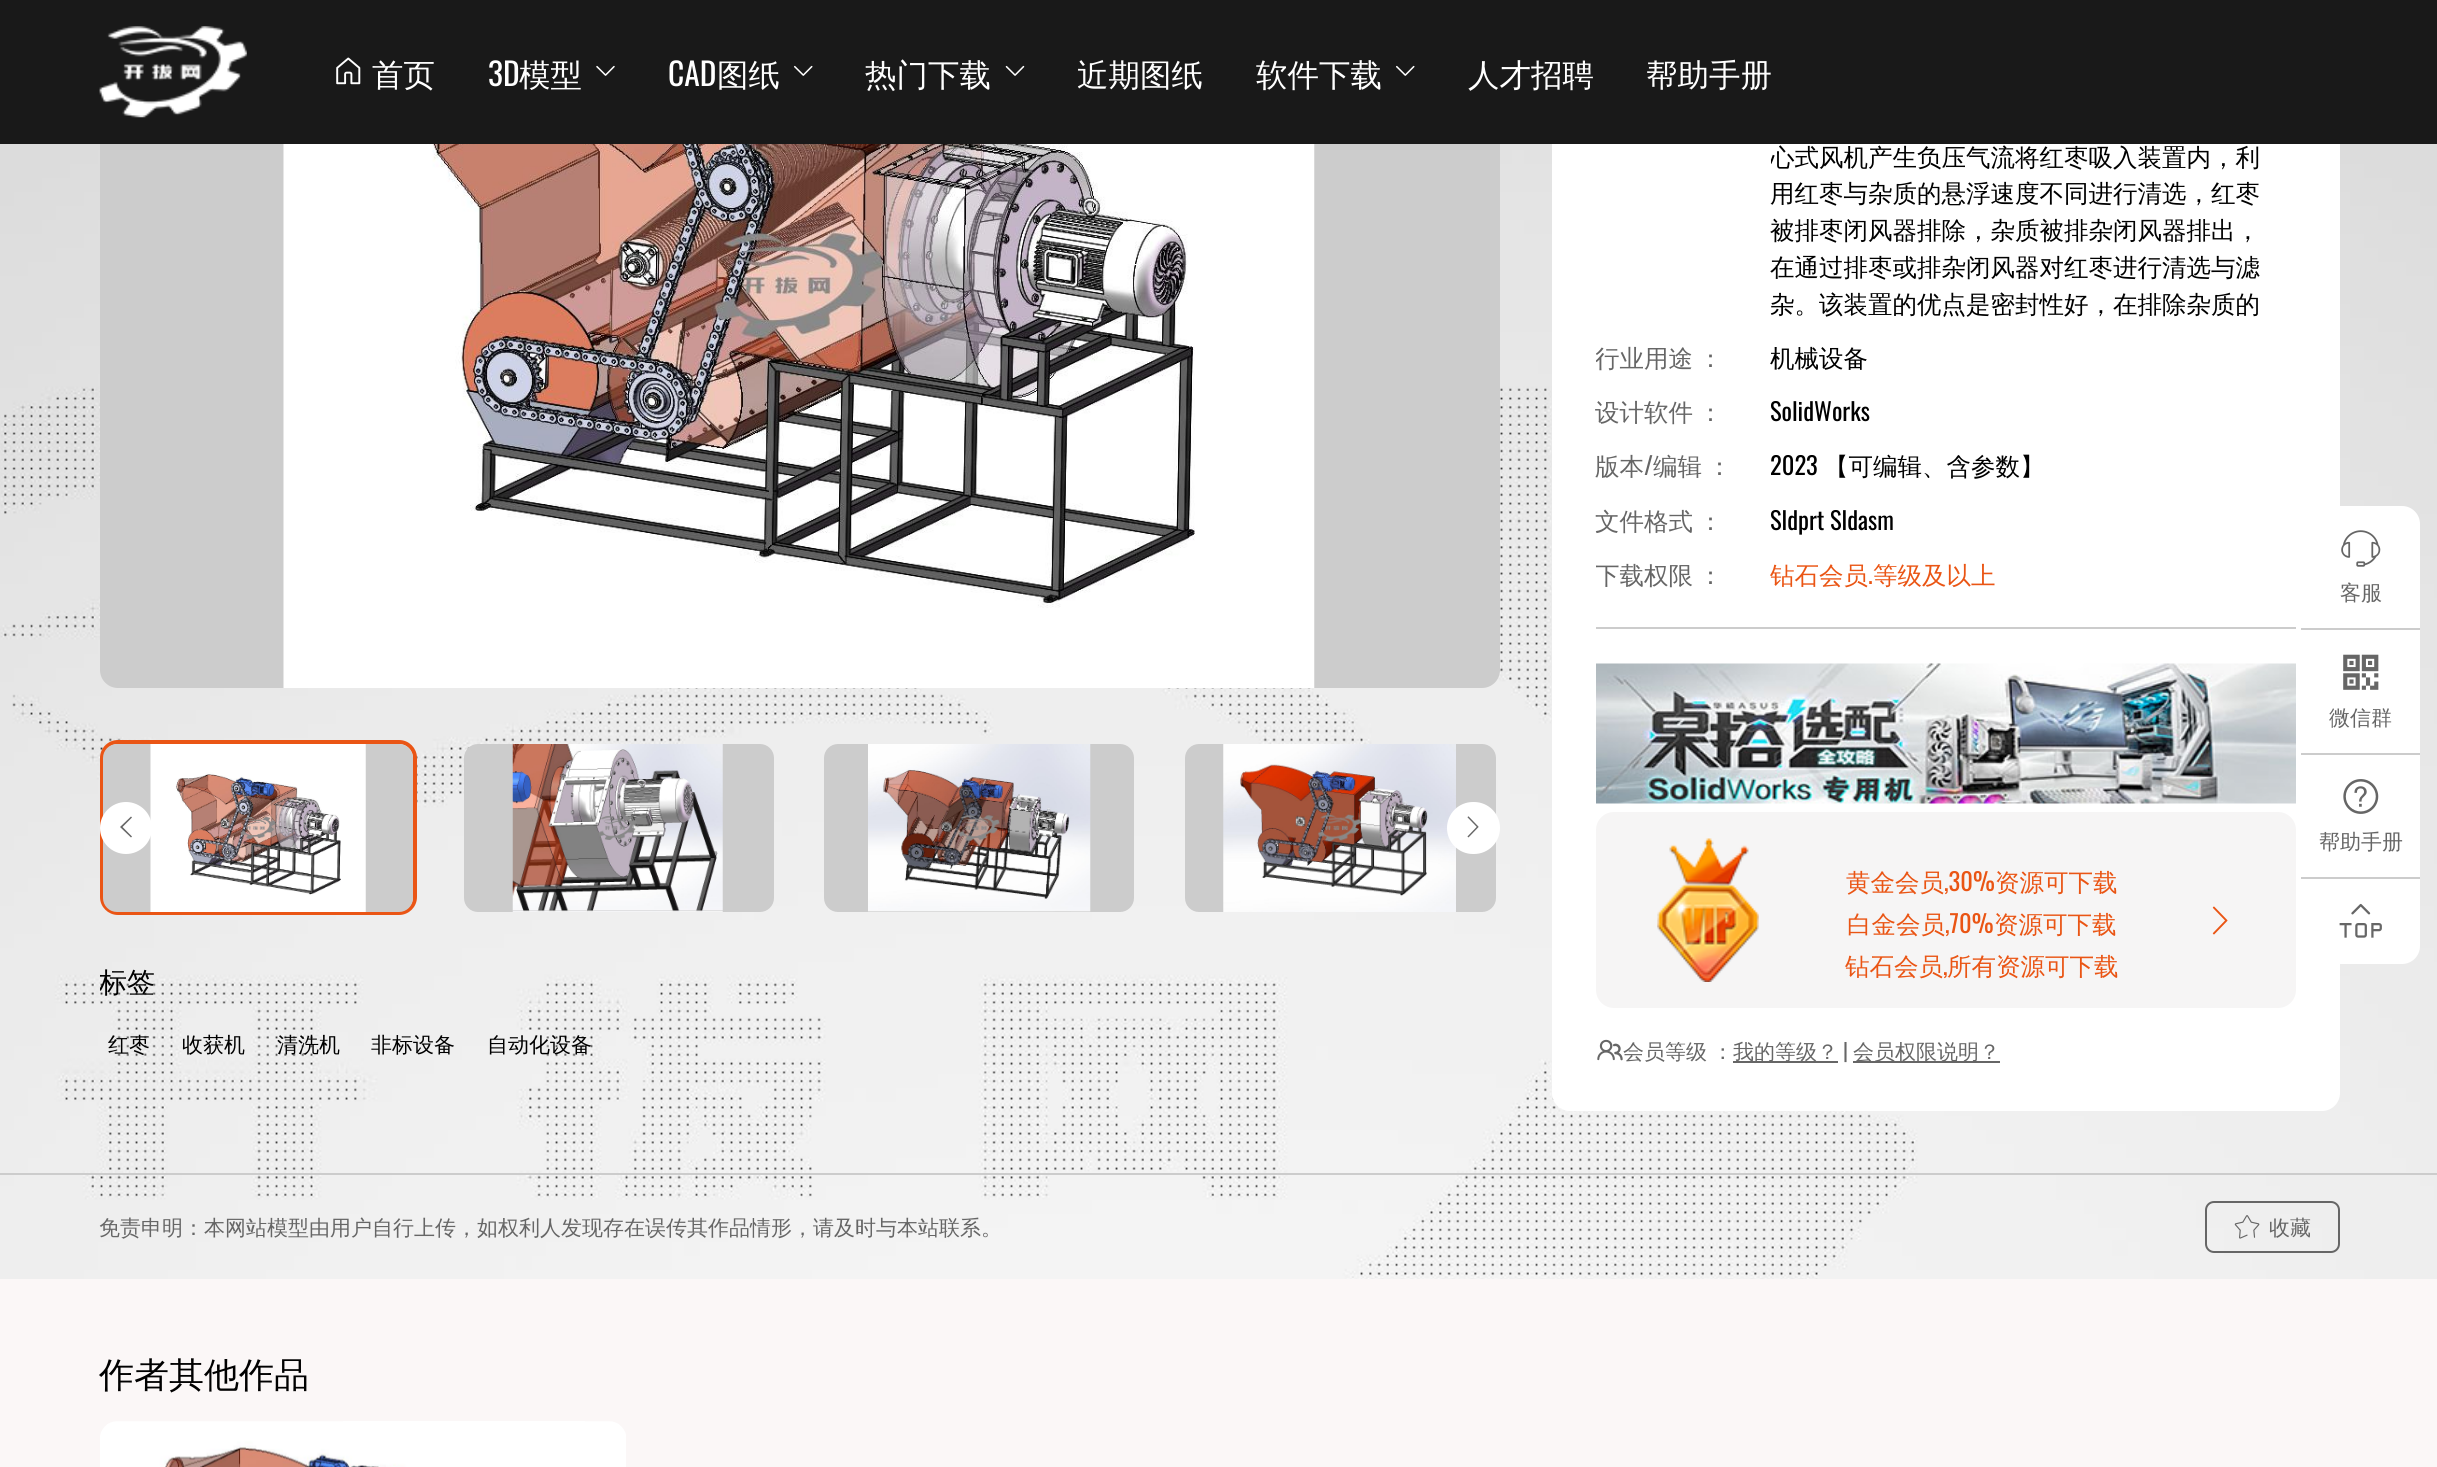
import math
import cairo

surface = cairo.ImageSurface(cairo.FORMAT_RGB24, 2437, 1467)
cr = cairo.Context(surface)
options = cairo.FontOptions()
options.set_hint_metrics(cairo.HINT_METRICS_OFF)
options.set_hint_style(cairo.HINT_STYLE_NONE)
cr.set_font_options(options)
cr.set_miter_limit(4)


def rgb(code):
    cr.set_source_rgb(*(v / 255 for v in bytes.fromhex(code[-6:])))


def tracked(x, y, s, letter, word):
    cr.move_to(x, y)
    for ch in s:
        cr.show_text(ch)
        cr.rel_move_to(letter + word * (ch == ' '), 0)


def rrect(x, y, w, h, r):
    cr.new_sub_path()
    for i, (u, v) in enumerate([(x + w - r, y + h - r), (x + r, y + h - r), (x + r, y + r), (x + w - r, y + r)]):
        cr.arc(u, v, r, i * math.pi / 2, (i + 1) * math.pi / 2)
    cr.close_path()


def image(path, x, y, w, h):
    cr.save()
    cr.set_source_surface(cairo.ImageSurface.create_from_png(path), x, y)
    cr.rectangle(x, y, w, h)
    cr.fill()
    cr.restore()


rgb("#ffffff")
cr.paint()
image("img/10.png", 0, 144, 2437, 1135)
rgb("#cccccc")
rrect(100, -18, 1400, 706, 18)
cr.fill()
rgb("#ffffff")
rrect(1552, -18, 788, 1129, 18)
cr.fill()
rgb("#191919")
cr.rectangle(0, 0, 2437, 144)
cr.fill()
image("img/1.png", 99, 26, 148, 92)
image("img/2.png", 336, 57, 25, 28)
image("img/3.png", 596, 65, 19, 11)
image("img/4.png", 794, 65, 19, 11)
image("img/5.png", 1005, 65, 20, 11)
image("img/4.png", 1396, 65, 19, 11)
rgb("#ffffff")
rrect(2301, 506, 119, 458, 18)
cr.fill()
rgb("#cccccc")
cr.rectangle(2301, 628, 119, 2)
cr.fill()
image("img/6.png", 2341, 530, 40, 37)
cr.rectangle(2301, 753, 119, 2)
cr.fill()
image("img/7.png", 2343, 654, 36, 36)
cr.rectangle(2301, 877, 119, 2)
cr.fill()
image("img/8.png", 2343, 779, 36, 35)
image("img/9.png", 2339, 903, 43, 35)
image("img/11.png", 283, 144, 1032, 544)
rrect(102, 742, 313, 171, 16)
rgb("#ea5515")
cr.set_line_width(4)
cr.stroke()
rgb("#cccccc")
rrect(103, 744, 310, 168, 14)
cr.fill()
image("img/12.png", 150, 744, 216, 168)
rrect(464, 744, 310, 168, 14)
cr.fill()
image("img/13.png", 512, 744, 211, 168)
rrect(824, 744, 310, 168, 14)
cr.fill()
image("img/14.png", 868, 744, 223, 168)
rrect(1185, 744, 311, 168, 14)
cr.fill()
image("img/15.png", 1223, 744, 233, 168)
rgb("#ffffff")
cr.arc(126, 828, 26, 0, 2 * math.pi)
cr.fill()
rgb("#666666")
cr.new_path()
cr.move_to(122.5, 827)
cr.line_to(132, 836.5)
cr.line_to(131, 837.5)
cr.line_to(120, 827)
cr.line_to(131, 816.5)
cr.line_to(132, 817.5)
cr.close_path()
cr.fill()
rgb("#ffffff")
rrect(1447, 802, 53, 52, 26)
cr.fill()
image("img/16.png", 1467, 816, 12, 22)
rgb("#cccccc")
cr.rectangle(1596, 627, 700, 2)
cr.fill()
image("img/17.png", 1596, 663, 700, 141)
rgb("#f6f5f5")
rrect(1596, 812, 700, 196, 18)
cr.fill()
image("img/18.png", 1657, 838, 102, 144)
image("img/19.png", 2212, 906, 16, 29)
image("img/20.png", 1597, 1039, 26, 22)
for x, y, w, h, color in [
    (1733, 1061, 105, 2, "#666666"),
    (1853, 1061, 147, 2, "#666666"),
    (0, 1173, 2437, 2, "#cccccc"),
]:
    rgb(color)
    cr.rectangle(x, y, w, h)
    cr.fill()
rrect(2206, 1202, 133, 50, 8)
rgb("#666666")
cr.set_line_width(2)
cr.stroke()
image("img/21.png", 2234, 1215, 26, 24)
rgb("#fbf7f7")
cr.rectangle(0, 1279, 2437, 188)
cr.fill()
image("img/22.png", 100, 1421, 526, 46)
cr.select_font_face("WenQuanYi Zen Hei Medium")
cr.set_font_size(31.5)
rgb("#ffffff")
cr.move_to(372, 86)
cr.show_text("首页")
cr.select_font_face("Oswald")
cr.move_to(488, 86)
cr.show_text("3D")
cr.select_font_face("WenQuanYi Zen Hei Medium")
cr.move_to(519, 86)
cr.show_text("模型")
cr.select_font_face("Oswald")
cr.move_to(668, 86)
cr.show_text("CAD")
cr.select_font_face("WenQuanYi Zen Hei Medium")
for x, y, s in [
    (717, 86, "图纸"),
    (865, 86, "热门下载"),
    (1077, 86, "近期图纸"),
    (1256, 86, "软件下载"),
    (1468, 86, "人才招聘"),
    (1646, 86, "帮助手册"),
]:
    cr.move_to(x, y)
    cr.show_text(s)
cr.set_font_size(21)
rgb("#666666")
for x, y, s in [
    (2340, 600, "客服"),
    (2329, 725, "微信群"),
    (2319, 849, "帮助手册"),
]:
    cr.move_to(x, y)
    cr.show_text(s)
cr.save()
cr.rectangle(100, 0, 1400, 1068)
cr.clip()
cr.set_font_size(28)
rgb("#000000")
cr.move_to(99, 992)
cr.show_text("标签")
cr.restore()
rgb("#000000")
for x, y, s in [
    (108, 1052, "红枣"),
    (182, 1052, "收获机"),
    (277, 1052, "清洗机"),
    (371, 1052, "非标设备"),
    (487, 1052, "自动化设备"),
]:
    cr.move_to(x, y)
    cr.show_text(s)
cr.save()
cr.rectangle(1771, 100, 525, 220)
cr.clip()
cr.set_font_size(24.5)
cr.move_to(1770, 166)
cr.show_text("心式风机产生负压气流将红枣吸入装置内，利")
cr.restore()
cr.set_font_size(24.5)
for x, y, s in [
    (1770, 202, "用红枣与杂质的悬浮速度不同进行清选，红枣"),
    (1770, 239, "被排枣闭风器排除，杂质被排杂闭风器排出，"),
    (1770, 276, "在通过排枣或排杂闭风器对红枣进行清选与滤"),
    (1770, 313, "杂。该装置的优点是密封性好，在排除杂质的"),
]:
    cr.move_to(x, y)
    cr.show_text(s)
cr.save()
cr.rectangle(1596, 338, 175, 37)
cr.clip()
rgb("#666666")
tracked(1595, 367, "行业用途 ：", 0, -2)
cr.restore()
cr.move_to(1770, 367)
cr.show_text("机械设备")
rgb("#666666")
tracked(1595, 421, "设计软件 ：", 0, -2)
cr.select_font_face("Oswald")
rgb("#000000")
cr.move_to(1770, 421)
cr.show_text("SolidWorks")
cr.select_font_face("WenQuanYi Zen Hei Medium")
rgb("#666666")
cr.move_to(1595, 475)
cr.show_text("版本")
cr.select_font_face("Oswald")
cr.move_to(1644, 475)
cr.show_text("/")
cr.select_font_face("WenQuanYi Zen Hei Medium")
tracked(1653, 475, "编辑 ：", 0, -2)
cr.select_font_face("Oswald")
rgb("#000000")
cr.move_to(1770, 475)
cr.show_text("2023")
cr.select_font_face("WenQuanYi Zen Hei Medium")
cr.move_to(1824, 475)
cr.show_text("【可编辑、含参数】")
rgb("#666666")
tracked(1595, 530, "文件格式 ：", 0, -2)
cr.select_font_face("Oswald")
rgb("#000000")
cr.move_to(1770, 530)
cr.show_text("Sldprt Sldasm")
cr.save()
cr.rectangle(1596, 555, 175, 37)
cr.clip()
cr.select_font_face("WenQuanYi Zen Hei Medium")
rgb("#666666")
tracked(1595, 584, "下载权限 ：", 0, -2)
cr.restore()
cr.select_font_face("WenQuanYi Zen Hei Medium")
rgb("#ea5514")
cr.move_to(1770, 584)
cr.show_text("钻石会员")
cr.select_font_face("Oswald")
cr.move_to(1868, 584)
cr.show_text(".")
cr.select_font_face("WenQuanYi Zen Hei Medium")
cr.move_to(1873, 584)
cr.show_text("等级及以上")
cr.move_to(1846, 891)
cr.show_text("黄金会员")
cr.select_font_face("Oswald")
cr.move_to(1944, 891)
cr.show_text(",30%")
cr.select_font_face("WenQuanYi Zen Hei Medium")
cr.move_to(1995, 891)
cr.show_text("资源可下载")
cr.move_to(1847, 933)
cr.show_text("白金会员")
cr.select_font_face("Oswald")
cr.move_to(1945, 933)
cr.show_text(",70%")
cr.select_font_face("WenQuanYi Zen Hei Medium")
cr.move_to(1994, 933)
cr.show_text("资源可下载")
cr.move_to(1845, 975)
cr.show_text("钻石会员")
cr.select_font_face("Oswald")
cr.move_to(1943, 975)
cr.show_text(",")
cr.select_font_face("WenQuanYi Zen Hei Medium")
cr.move_to(1947, 975)
cr.show_text("所有资源可下载")
cr.set_font_size(21)
rgb("#666666")
tracked(1623, 1059, "会员等级 ：", 0, -1)
cr.move_to(1733, 1059)
cr.show_text("我的等级？")
cr.select_font_face("Oswald")
cr.move_to(1843, 1059)
cr.show_text("|")
cr.select_font_face("WenQuanYi Zen Hei Medium")
for x, y, s in [
    (1853, 1059, "会员权限说明？"),
    (99, 1235, "免责申明：本网站模型由用户自行上传，如权利人发现存在误传其作品情形，请及时与本站联系。"),
    (2269, 1235, "收藏"),
]:
    cr.move_to(x, y)
    cr.show_text(s)
cr.set_font_size(35)
rgb("#000000")
cr.move_to(99, 1387)
cr.show_text("作者其他作品")
surface.write_to_png("page.png")
